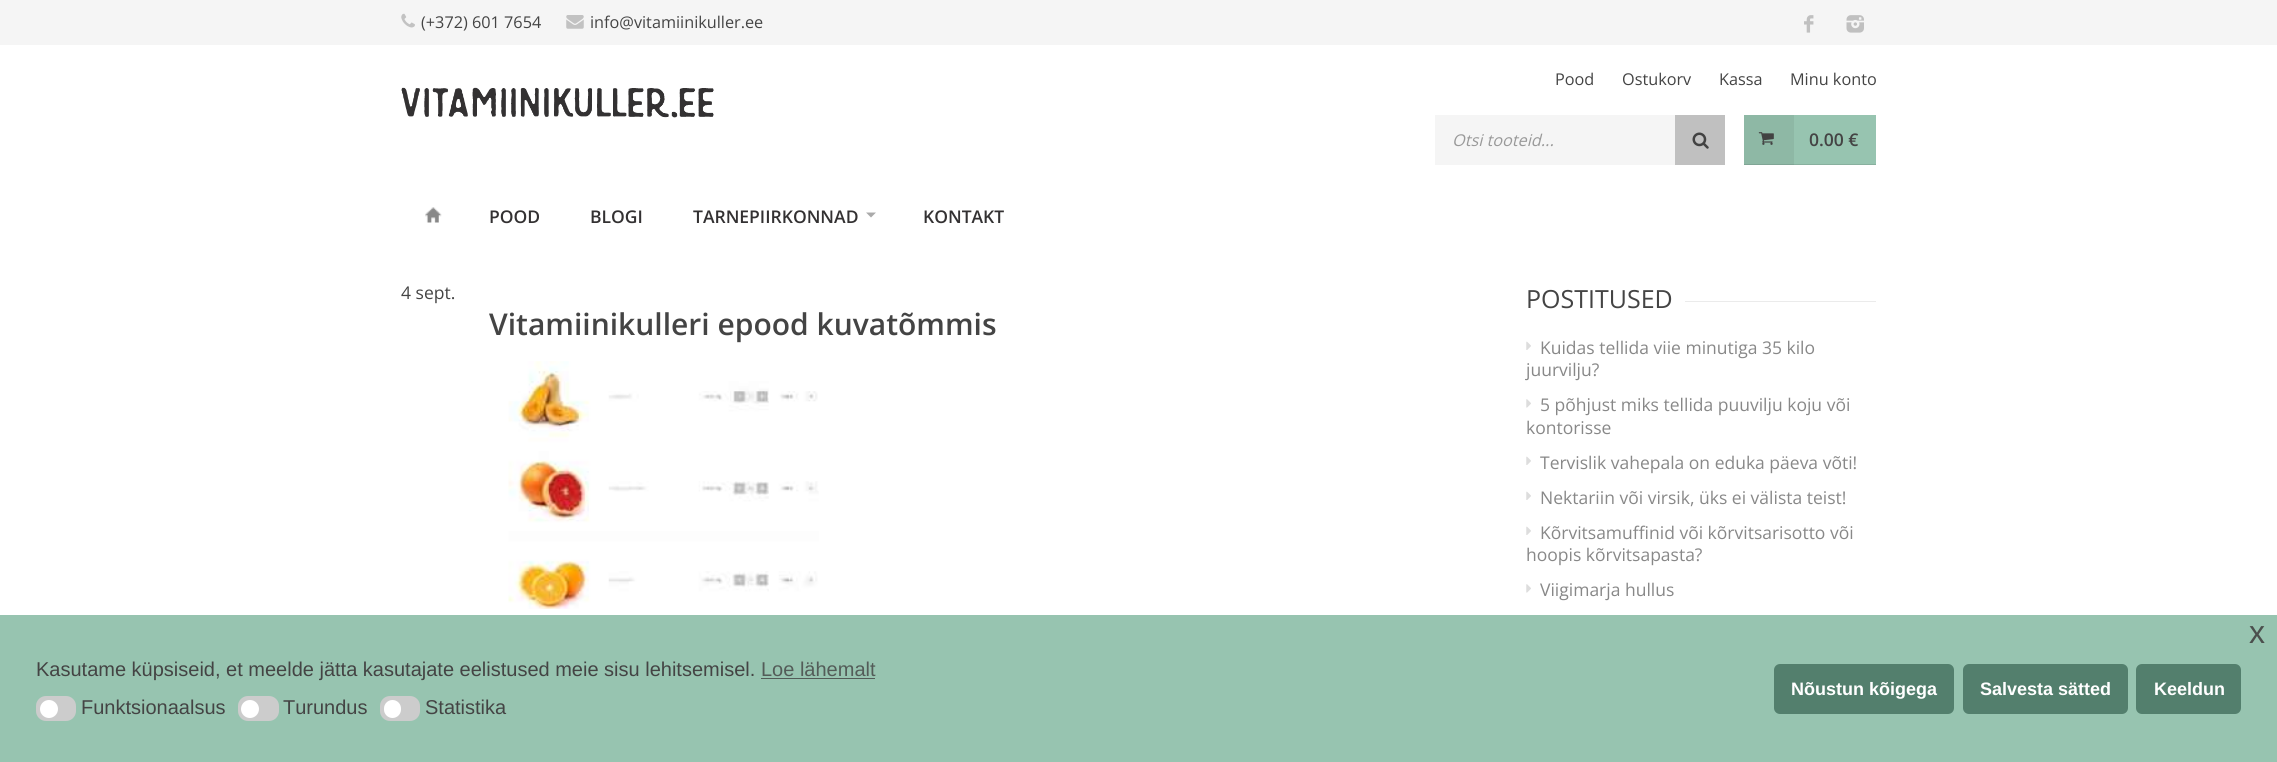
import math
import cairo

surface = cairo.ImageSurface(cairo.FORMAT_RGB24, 2277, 762)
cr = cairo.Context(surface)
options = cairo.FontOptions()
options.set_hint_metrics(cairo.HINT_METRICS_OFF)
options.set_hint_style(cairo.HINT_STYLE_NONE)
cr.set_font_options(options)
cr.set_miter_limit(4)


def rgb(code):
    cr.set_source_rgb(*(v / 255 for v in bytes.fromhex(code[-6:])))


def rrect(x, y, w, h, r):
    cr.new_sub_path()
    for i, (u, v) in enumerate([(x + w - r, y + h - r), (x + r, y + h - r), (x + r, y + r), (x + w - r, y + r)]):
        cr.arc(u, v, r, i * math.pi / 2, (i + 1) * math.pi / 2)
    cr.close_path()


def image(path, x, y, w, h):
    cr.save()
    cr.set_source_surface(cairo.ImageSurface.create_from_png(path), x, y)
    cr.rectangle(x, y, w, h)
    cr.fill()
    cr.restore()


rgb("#ffffff")
cr.paint()
rgb("#f5f5f5")
cr.rectangle(0, 0, 2277, 45)
cr.fill()
image("img/1.png", 401, 13, 14, 15)
image("img/2.png", 566, 15, 18, 14)
image("img/3.png", 1804, 15, 10, 18)
image("img/4.png", 1846, 15, 18, 18)
image("img/5.png", 401, 87, 313, 31)
cr.rectangle(1435, 115, 240, 50)
cr.fill()
rgb("#c0c0c0")
cr.rectangle(1675, 115, 50, 50)
cr.fill()
image("img/6.png", 1692, 132, 17, 17)
for x, y, w, h, color in [
    (1794, 115, 82, 49, "#97c4b0"),
    (1744, 115, 50, 49, "#8eb8a5"),
    (1794, 164, 82, 1, "#88b09e"),
    (1744, 164, 50, 1, "#80a595"),
]:
    rgb(color)
    cr.rectangle(x, y, w, h)
    cr.fill()
image("img/7.png", 1758, 132, 16, 13)
image("img/8.png", 425, 207, 17, 16)
rgb("#aaaaaa")
cr.new_path()
cr.move_to(866, 212.5)
cr.line_to(876, 212.5)
cr.line_to(871, 217.5)
cr.close_path()
cr.fill()
image("img/9.png", 508, 361, 311, 248)
rgb("#ebebeb")
cr.rectangle(1685, 301, 191, 1)
cr.fill()
image("img/10.png", 1526, 341, 5, 9)
image("img/11.png", 1526, 399, 5, 9)
image("img/10.png", 1526, 456, 5, 9)
image("img/10.png", 1526, 491, 5, 9)
image("img/10.png", 1526, 526, 5, 9)
image("img/11.png", 1526, 584, 5, 9)
rgb("#97c4b0")
cr.rectangle(0, 615, 2277, 147)
cr.fill()
rgb("#535c58")
cr.rectangle(761, 678, 114, 1)
cr.fill()
rgb("#cccccc")
rrect(36, 696, 40, 25, 10)
cr.fill()
rgb("#ffffff")
cr.arc(49, 709, 9, 0, 2 * math.pi)
cr.fill()
rgb("#cccccc")
rrect(238, 696, 41, 25, 10)
cr.fill()
rgb("#ffffff")
cr.arc(250, 709, 9, 0, 2 * math.pi)
cr.fill()
rgb("#cccccc")
rrect(380, 696, 40, 25, 10)
cr.fill()
rgb("#ffffff")
rrect(384, 700, 17, 18, 8.5)
cr.fill()
rgb("#537f6d")
rrect(1774, 664, 180, 50, 6)
cr.fill()
rrect(1963, 664, 165, 50, 6)
cr.fill()
rrect(2136, 664, 105, 50, 6)
cr.fill()
cr.select_font_face("Open Sans")
cr.set_font_size(16.25)
rgb("#444444")
for x, y, s in [
    (421, 28, "(+372) 601 7654"),
    (590, 28, "info@vitamiinikuller.ee"),
    (1555, 85, "Pood"),
    (1622, 85, "Ostukorv"),
    (1719, 85, "Kassa"),
    (1790, 85, "Minu konto"),
]:
    cr.move_to(x, y)
    cr.show_text(s)
cr.select_font_face("Open Sans", cairo.FONT_SLANT_ITALIC)
rgb("#999999")
cr.move_to(1452, 146)
cr.show_text("Otsi tooteid...")
cr.select_font_face("Open Sans SemiBold")
cr.set_font_size(17.5)
rgb("#444444")
cr.move_to(1809, 146)
cr.show_text("0.00 €")
rgb("#333132")
for x, y, s in [
    (489, 223, "POOD"),
    (590, 223, "BLOGI"),
    (693, 223, "TARNEPIIRKONNAD"),
    (923, 223, "KONTAKT"),
]:
    cr.move_to(x, y)
    cr.show_text(s)
cr.select_font_face("Open Sans")
rgb("#444444")
cr.move_to(401, 299)
cr.show_text("4 sept.")
cr.select_font_face("Open Sans SemiBold")
cr.set_font_size(30)
cr.move_to(489, 335)
cr.show_text("Vitamiinikulleri epood kuvatõmmis")
cr.select_font_face("Open Sans")
cr.set_font_size(25)
cr.move_to(1526, 308)
cr.show_text("POSTITUSED")
cr.set_font_size(17.5)
rgb("#888888")
for x, y, s in [
    (1540, 354, "Kuidas tellida viie minutiga 35 kilo"),
    (1526, 376, "juurvilju?"),
    (1540, 411, "5 põhjust miks tellida puuvilju koju või"),
    (1526, 434, "kontorisse"),
    (1540, 469, "Tervislik vahepala on eduka päeva võti!"),
    (1540, 504, "Nektariin või virsik, üks ei välista teist!"),
    (1540, 539, "Kõrvitsamuffinid või kõrvitsarisotto või"),
    (1526, 561, "hoopis kõrvitsapasta?"),
    (1540, 596, "Viigimarja hullus"),
]:
    cr.move_to(x, y)
    cr.show_text(s)
cr.select_font_face("Liberation Sans")
cr.set_font_size(32)
rgb("#4b4f4d")
cr.move_to(2249, 643)
cr.show_text("x")
cr.set_font_size(20)
rgb("#444444")
cr.move_to(36, 676)
cr.show_text("Kasutame küpsiseid, et meelde jätta kasutajate eelistused meie sisu lehitsemisel.")
rgb("#535c58")
cr.move_to(761, 676)
cr.show_text("Loe lähemalt")
rgb("#444444")
for x, y, s in [
    (81, 714, "Funktsionaalsus"),
    (283, 714, "Turundus"),
    (425, 714, "Statistika"),
]:
    cr.move_to(x, y)
    cr.show_text(s)
cr.select_font_face("Liberation Sans", cairo.FONT_SLANT_NORMAL, cairo.FONT_WEIGHT_BOLD)
cr.set_font_size(18)
rgb("#ffffff")
for x, y, s in [
    (1791, 695, "Nõustun kõigega"),
    (1980, 695, "Salvesta sätted"),
    (2154, 695, "Keeldun"),
]:
    cr.move_to(x, y)
    cr.show_text(s)
surface.write_to_png("page.png")
